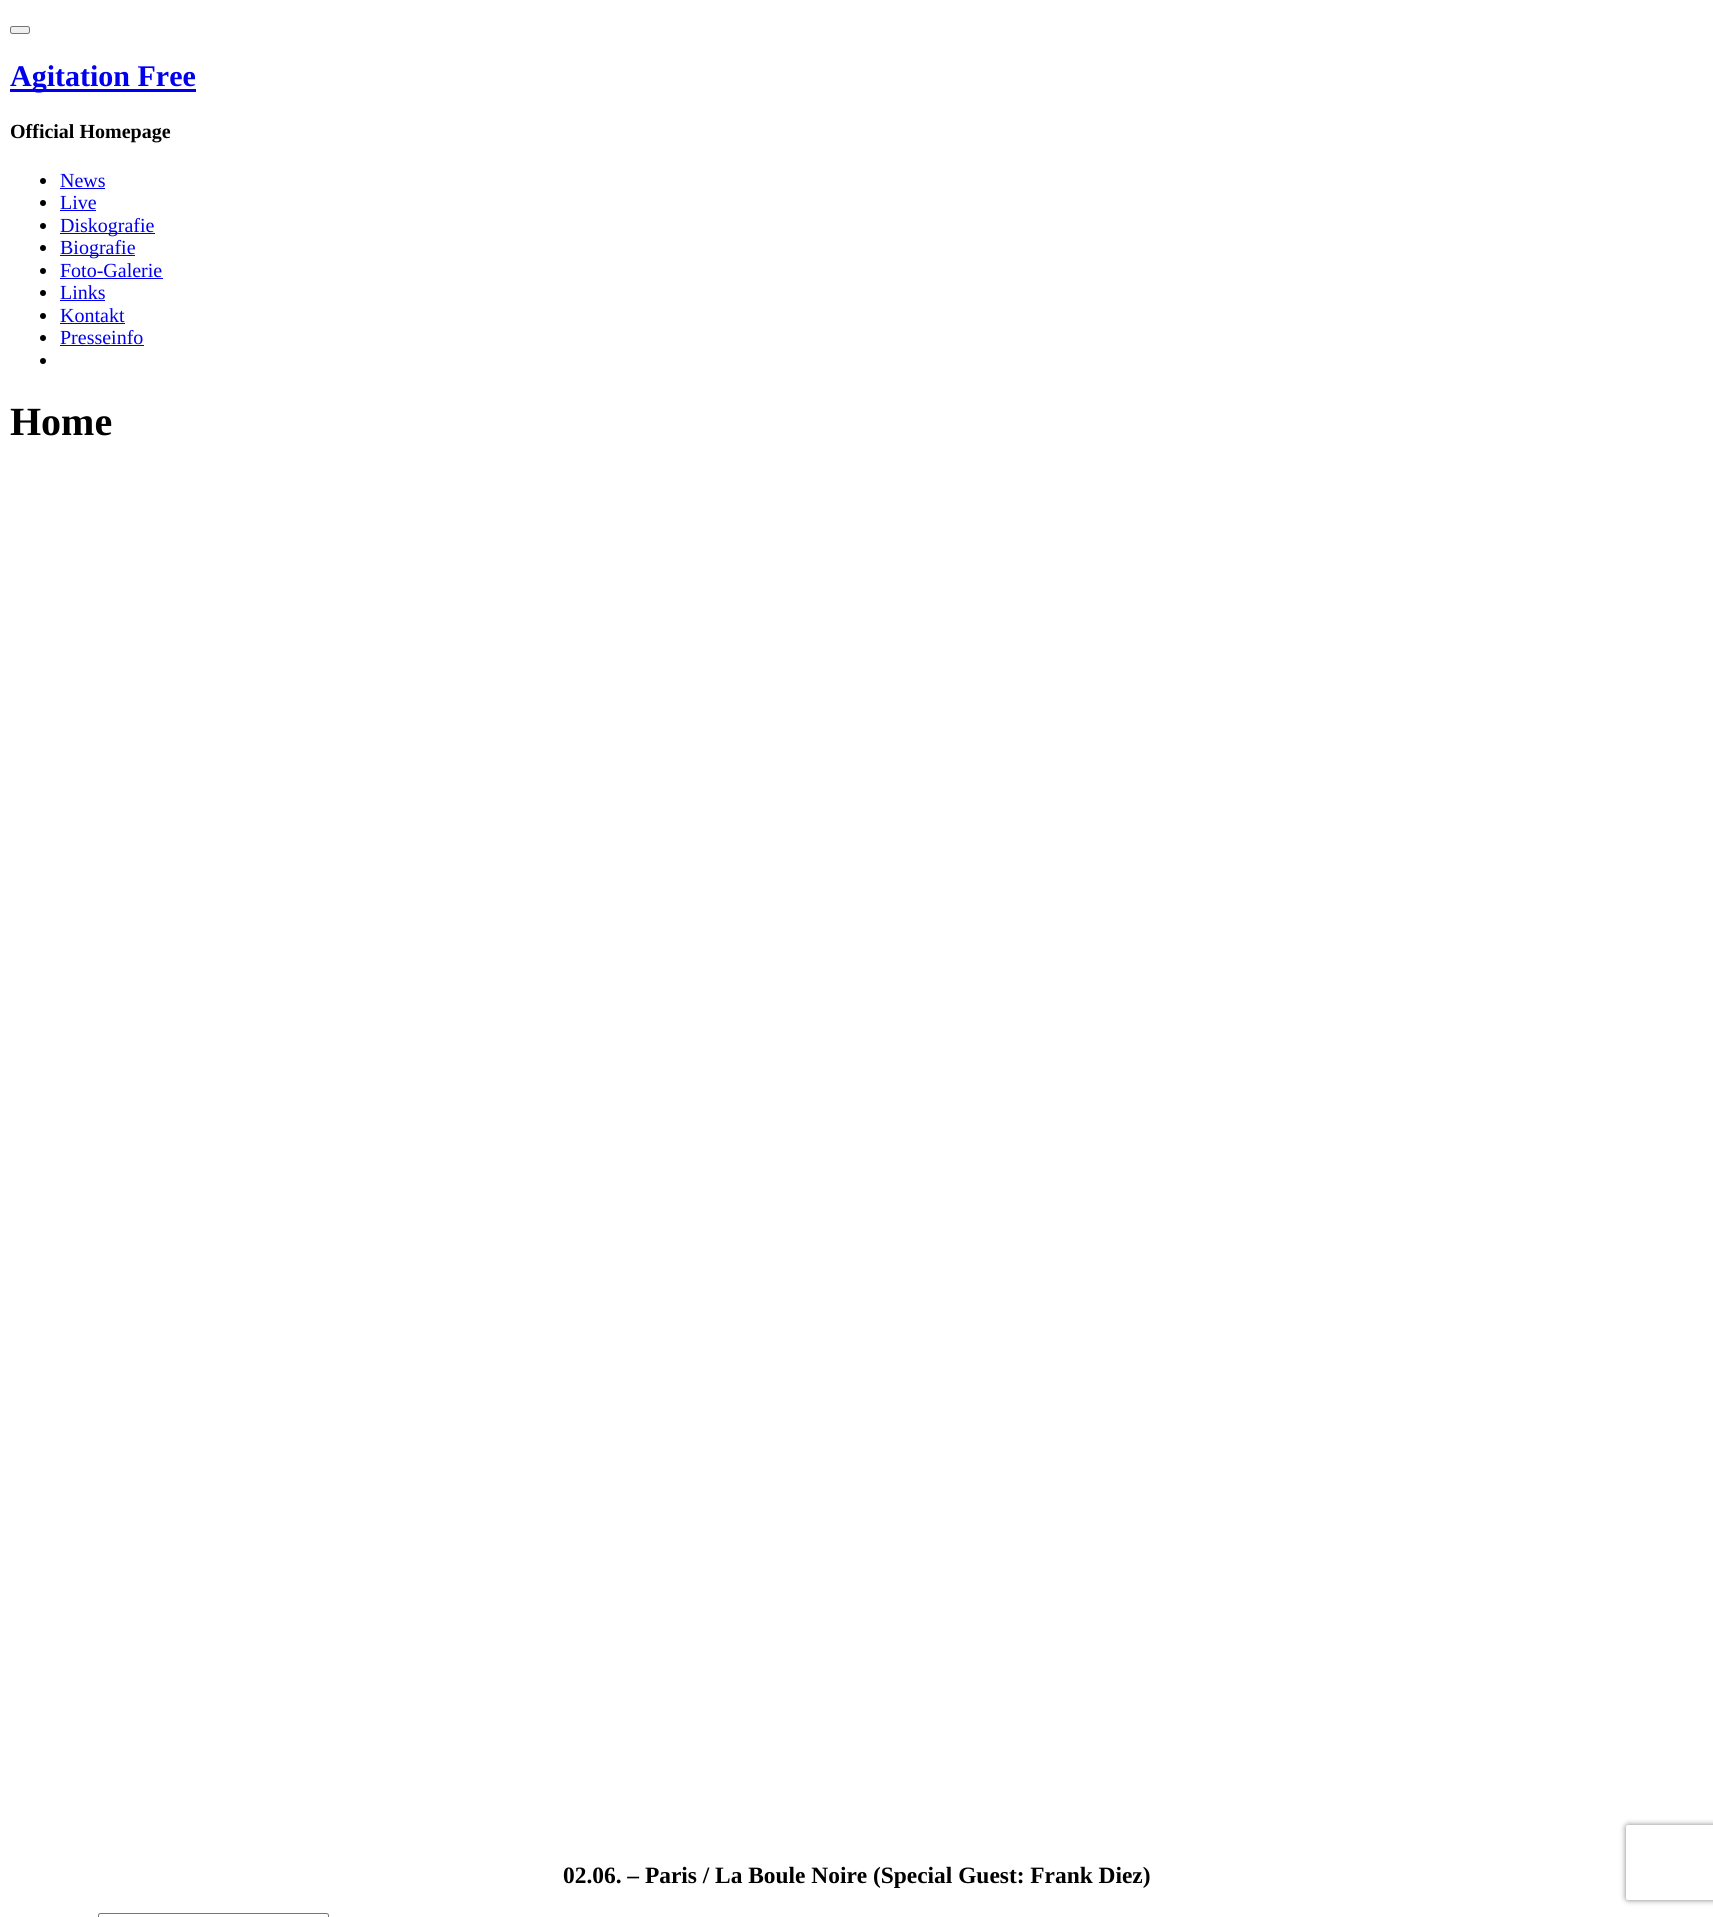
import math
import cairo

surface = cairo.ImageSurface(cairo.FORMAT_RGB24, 1713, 1917)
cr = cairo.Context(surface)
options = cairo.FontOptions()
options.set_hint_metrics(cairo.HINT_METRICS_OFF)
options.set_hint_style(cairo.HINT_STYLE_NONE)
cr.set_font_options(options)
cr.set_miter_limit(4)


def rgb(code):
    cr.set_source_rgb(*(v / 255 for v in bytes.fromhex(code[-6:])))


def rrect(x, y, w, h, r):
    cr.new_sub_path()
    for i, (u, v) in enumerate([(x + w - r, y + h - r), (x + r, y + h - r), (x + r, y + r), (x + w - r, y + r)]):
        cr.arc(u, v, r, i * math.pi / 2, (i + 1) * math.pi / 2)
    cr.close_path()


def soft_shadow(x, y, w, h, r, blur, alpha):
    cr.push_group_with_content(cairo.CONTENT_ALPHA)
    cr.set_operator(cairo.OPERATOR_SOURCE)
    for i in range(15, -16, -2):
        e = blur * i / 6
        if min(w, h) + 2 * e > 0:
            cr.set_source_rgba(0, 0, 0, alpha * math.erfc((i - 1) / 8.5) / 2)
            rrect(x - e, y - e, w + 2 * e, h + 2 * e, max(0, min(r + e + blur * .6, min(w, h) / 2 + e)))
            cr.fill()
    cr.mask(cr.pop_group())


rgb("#ffffff")
cr.paint()
rgb("#efefef")
rrect(10.5, 26.5, 19, 7, 2)
cr.fill_preserve()
rgb("#767676")
cr.set_line_width(1)
cr.stroke()
rgb("#0000ee")
cr.rectangle(10, 89, 186, 3)
cr.fill()
rgb("#000000")
cr.arc(43, 181, 3, 0, 2 * math.pi)
cr.fill()
rgb("#0000ee")
cr.rectangle(60, 188, 45, 1)
cr.fill()
rgb("#000000")
cr.arc(43, 203, 3, 0, 2 * math.pi)
cr.fill()
rgb("#0000ee")
cr.rectangle(60, 210, 36, 1)
cr.fill()
rgb("#000000")
cr.arc(43, 226, 3, 0, 2 * math.pi)
cr.fill()
rgb("#0000ee")
cr.rectangle(60, 233, 95, 1)
cr.fill()
rgb("#000000")
cr.arc(43, 248, 3, 0, 2 * math.pi)
cr.fill()
rgb("#0000ee")
cr.rectangle(60, 255, 75, 1)
cr.fill()
rgb("#000000")
cr.arc(43, 271, 3, 0, 2 * math.pi)
cr.fill()
rgb("#0000ee")
cr.rectangle(60, 278, 103, 1)
cr.fill()
rgb("#000000")
cr.arc(43, 293, 3, 0, 2 * math.pi)
cr.fill()
rgb("#0000ee")
cr.rectangle(60, 300, 45, 1)
cr.fill()
rgb("#000000")
cr.arc(43, 316, 3, 0, 2 * math.pi)
cr.fill()
rgb("#0000ee")
cr.rectangle(60, 323, 65, 1)
cr.fill()
rgb("#000000")
cr.arc(43, 338, 3, 0, 2 * math.pi)
cr.fill()
rgb("#0000ee")
cr.rectangle(60, 345, 84, 1)
cr.fill()
rgb("#000000")
cr.arc(43, 361, 3, 0, 2 * math.pi)
cr.fill()
rrect(98.5, 1913.5, 230, 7, 2)
rgb("#767676")
cr.stroke()
cr.save()
cr.set_fill_rule(cairo.FILL_RULE_EVEN_ODD)
cr.new_path()
cr.move_to(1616, 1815)
cr.line_to(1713, 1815)
cr.line_to(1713, 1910)
cr.line_to(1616, 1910)
cr.close_path()
cr.move_to(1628.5, 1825)
cr.line_to(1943.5, 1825)
cr.curve_to(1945, 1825, 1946, 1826, 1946, 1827.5)
cr.line_to(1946, 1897.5)
cr.curve_to(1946, 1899, 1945, 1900, 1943.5, 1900)
cr.line_to(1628.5, 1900)
cr.curve_to(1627, 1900, 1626, 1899, 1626, 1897.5)
cr.line_to(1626, 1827.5)
cr.curve_to(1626, 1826, 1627, 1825, 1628.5, 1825)
cr.close_path()
cr.clip()
rgb("#808080")
soft_shadow(1626, 1825, 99, 75, 2.5, 3, 1)
cr.restore()
cr.select_font_face("Liberation Serif", cairo.FONT_SLANT_NORMAL, cairo.FONT_WEIGHT_BOLD)
cr.set_font_size(30)
rgb("#0000ee")
cr.move_to(10, 86)
cr.show_text("Agitation Free")
cr.set_font_size(20)
rgb("#000000")
cr.move_to(10, 138)
cr.show_text("Official Homepage")
cr.select_font_face("Liberation Serif")
rgb("#0000ee")
for x, y, s in [
    (60, 187, "News"),
    (60, 209, "Live"),
    (60, 232, "Diskografie"),
    (60, 254, "Biografie"),
    (60, 277, "Foto-Galerie"),
    (60, 299, "Links"),
    (60, 322, "Kontakt"),
    (60, 344, "Presseinfo"),
]:
    cr.move_to(x, y)
    cr.show_text(s)
cr.select_font_face("Liberation Serif", cairo.FONT_SLANT_NORMAL, cairo.FONT_WEIGHT_BOLD)
cr.set_font_size(40)
rgb("#000000")
cr.move_to(10, 435)
cr.show_text("Home")
cr.set_font_size(23.4)
cr.move_to(563, 1883)
cr.show_text("02.06. – Paris / La Boule Noire (Special Guest: Frank Diez)")
surface.write_to_png("page.png")
